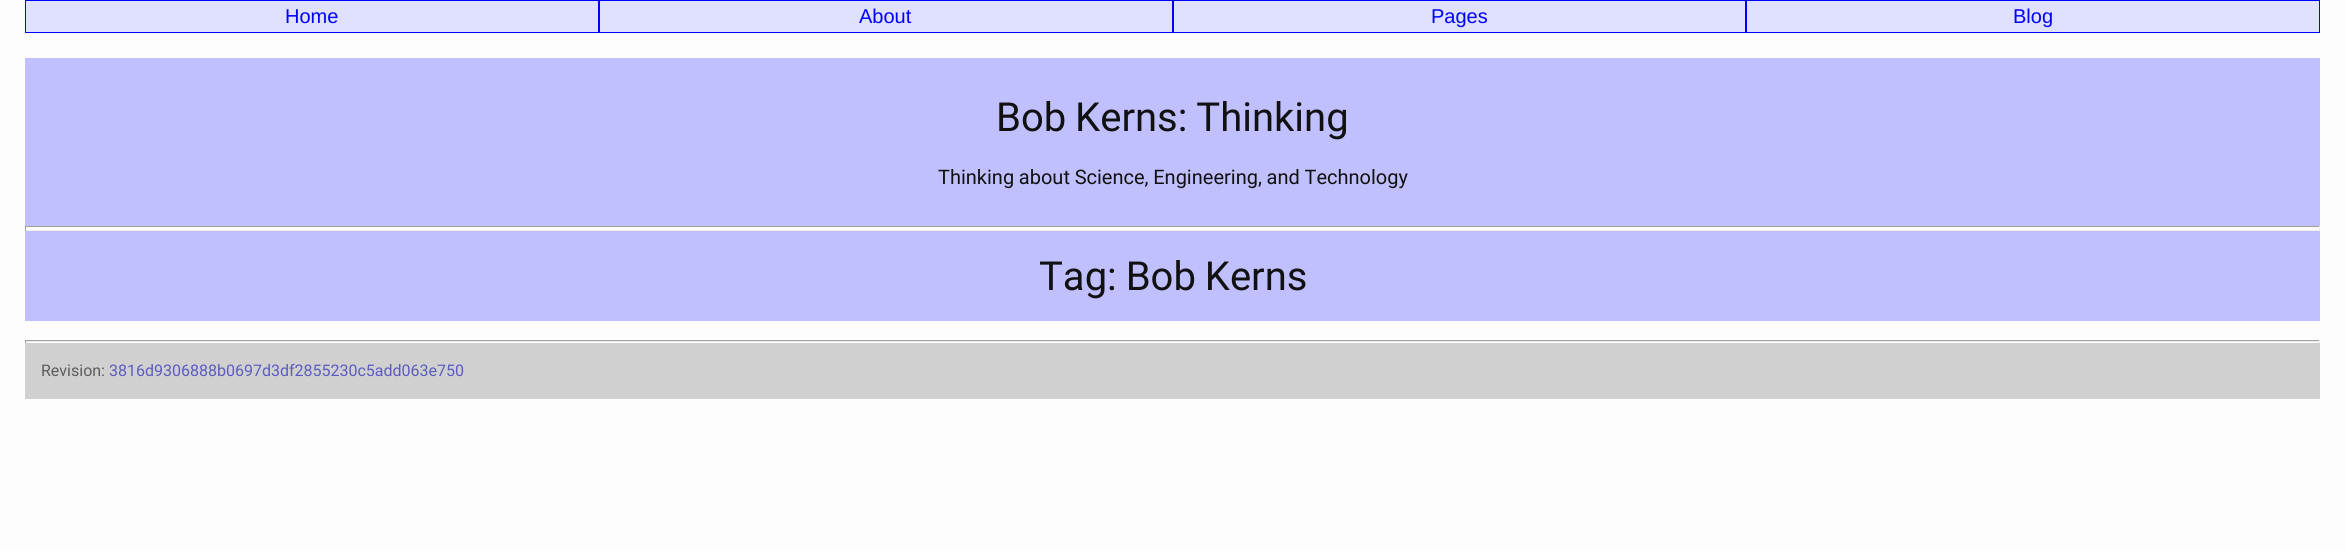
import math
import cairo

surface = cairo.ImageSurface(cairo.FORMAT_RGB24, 2345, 551)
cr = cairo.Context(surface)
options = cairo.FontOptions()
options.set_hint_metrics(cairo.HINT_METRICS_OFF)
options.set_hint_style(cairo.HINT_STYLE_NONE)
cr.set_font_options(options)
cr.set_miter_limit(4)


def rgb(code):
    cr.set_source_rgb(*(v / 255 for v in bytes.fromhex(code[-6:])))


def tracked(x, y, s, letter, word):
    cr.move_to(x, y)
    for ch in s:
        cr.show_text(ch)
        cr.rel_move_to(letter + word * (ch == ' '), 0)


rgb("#fdfdfd")
cr.paint()
rgb("#e0e0ff")
cr.rectangle(25.5, 0.5, 573, 32)
cr.fill_preserve()
rgb("#0000ff")
cr.set_line_width(1)
cr.stroke()
rgb("#e0e0ff")
cr.rectangle(599.5, 0.5, 573, 32)
cr.fill_preserve()
rgb("#0000ff")
cr.stroke()
rgb("#e0e0ff")
cr.rectangle(1173.5, 0.5, 572, 32)
cr.fill_preserve()
rgb("#0000ff")
cr.stroke()
rgb("#e0e0ff")
cr.rectangle(1746.5, 0.5, 573, 32)
cr.fill_preserve()
rgb("#0000ff")
cr.stroke()
for x, y, w, h, color in [
    (25, 58, 2295, 168, "#c0c0ff"),
    (25, 226, 2295, 1, "#9f9f9f"),
    (2319, 226, 1, 5, "#eeeeee"),
    (25, 230, 2295, 1, "#eeeeee"),
    (25, 226, 1, 5, "#9f9f9f"),
    (25, 231, 2295, 90, "#c0c0ff"),
    (25, 340, 2295, 1, "#9f9f9f"),
    (2319, 340, 1, 3, "#eeeeee"),
    (25, 341, 2295, 1, "#eeeeee"),
    (25, 340, 1, 3, "#9f9f9f"),
    (25, 343, 2295, 56, "#d0d0d0"),
]:
    rgb(color)
    cr.rectangle(x, y, w, h)
    cr.fill()
cr.select_font_face("Liberation Sans")
cr.set_font_size(20)
rgb("#0000ff")
for x, y, s in [
    (285, 23, "Home"),
    (859, 23, "About"),
    (1431, 23, "Pages"),
    (2013, 23, "Blog"),
]:
    cr.move_to(x, y)
    cr.show_text(s)
cr.select_font_face("Roboto")
cr.set_font_size(40)
rgb("#111111")
tracked(996, 131, "Bob Kerns: Thinking", 0, -1)
cr.set_font_size(20)
tracked(938, 184, "Thinking about Science, Engineering, and Technology", 0, -0.25)
cr.set_font_size(40)
tracked(1039, 290, "Tag: Bob Kerns", 0, -1)
cr.set_font_size(16)
rgb("#5c5c5c")
cr.move_to(41, 376)
cr.show_text("Revision:")
rgb("#5c5cc0")
cr.move_to(109, 376)
cr.show_text("3816d9306888b0697d3df2855230c5add063e750")
surface.write_to_png("page.png")
